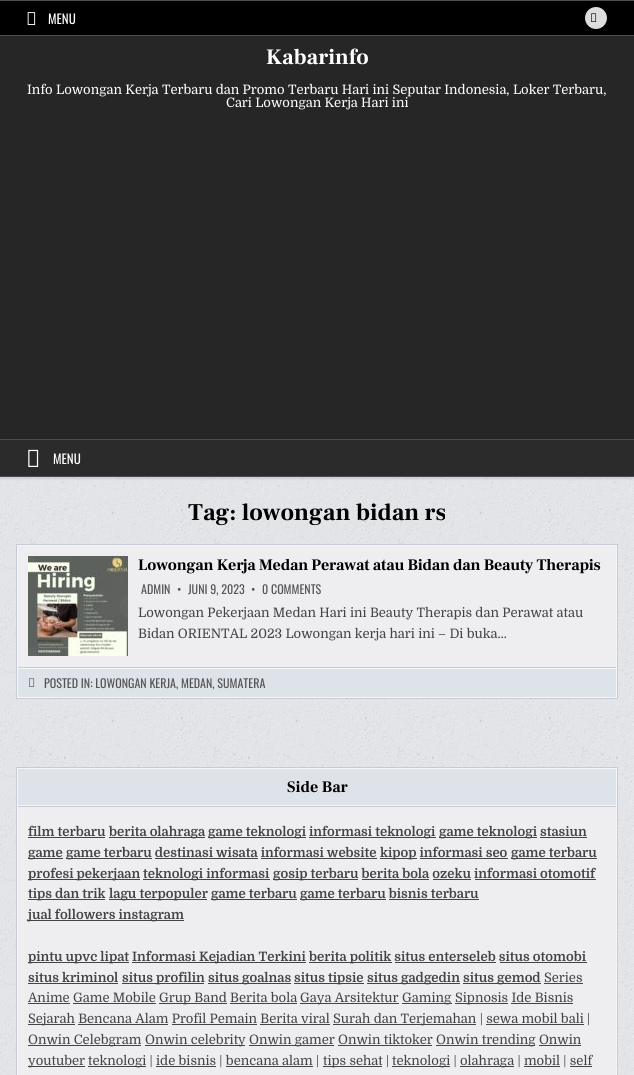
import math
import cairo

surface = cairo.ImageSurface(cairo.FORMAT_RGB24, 634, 1075)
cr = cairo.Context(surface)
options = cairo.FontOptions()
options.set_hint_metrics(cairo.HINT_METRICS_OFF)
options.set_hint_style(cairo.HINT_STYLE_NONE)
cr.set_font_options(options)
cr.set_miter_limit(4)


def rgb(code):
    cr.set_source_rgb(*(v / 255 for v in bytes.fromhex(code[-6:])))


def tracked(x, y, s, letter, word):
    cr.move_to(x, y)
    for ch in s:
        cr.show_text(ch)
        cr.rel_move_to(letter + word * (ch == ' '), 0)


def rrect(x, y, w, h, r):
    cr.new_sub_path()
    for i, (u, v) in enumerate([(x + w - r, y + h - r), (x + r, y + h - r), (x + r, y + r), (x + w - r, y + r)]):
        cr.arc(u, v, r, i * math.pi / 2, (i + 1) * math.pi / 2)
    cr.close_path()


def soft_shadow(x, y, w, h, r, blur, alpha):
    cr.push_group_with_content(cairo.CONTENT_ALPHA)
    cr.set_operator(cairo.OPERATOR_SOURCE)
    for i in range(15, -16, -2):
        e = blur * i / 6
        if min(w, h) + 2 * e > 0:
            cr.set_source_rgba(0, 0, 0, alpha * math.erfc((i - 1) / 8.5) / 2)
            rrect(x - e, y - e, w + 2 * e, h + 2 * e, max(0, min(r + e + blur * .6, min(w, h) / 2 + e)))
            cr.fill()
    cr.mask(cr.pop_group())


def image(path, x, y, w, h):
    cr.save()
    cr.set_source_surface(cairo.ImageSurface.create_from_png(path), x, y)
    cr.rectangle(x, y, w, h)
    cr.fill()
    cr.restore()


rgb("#e4e6e9")
cr.paint()
image("img/1.png", 0, 477, 634, 598)
for x, y, w, h, color in [
    (0, 1, 634, 34, "#000000"),
    (0, 0, 634, 1, "#4a4e53"),
    (0, 35, 634, 1, "#4a4e53"),
]:
    rgb(color)
    cr.rectangle(x, y, w, h)
    cr.fill()
image("img/2.png", 27, 12, 9, 13)
rgb("#dddddd")
cr.arc(596, 18, 11, 0, 2 * math.pi)
cr.fill()
image("img/3.png", 591, 13, 6, 9)
rgb("#000000")
soft_shadow(0, 441, 634, 38, 0, 1, 0.1)
for x, y, w, h, color in [
    (0, 36, 634, 403, "#262626"),
    (0, 440, 634, 36, "#2b2b2b"),
    (0, 439, 634, 1, "#4a4e53"),
    (0, 476, 634, 1, "#4a4e53"),
]:
    rgb(color)
    cr.rectangle(x, y, w, h)
    cr.fill()
image("img/4.png", 28, 449, 11, 18)
rgb("#eeedf0")
cr.rectangle(18, 546, 598, 121)
cr.fill()
cr.rectangle(17.5, 545.5, 599, 152)
rgb("#f5f6f7")
cr.set_line_width(1)
cr.stroke()
cr.rectangle(16.5, 544.5, 601, 154)
rgb("#c8cbd6")
cr.stroke()
image("img/5.png", 28, 556, 100, 100)
for x, y, w, h, color in [
    (18, 669, 598, 28, "#dee2e9"),
    (18, 667, 598, 1, "#c8cbd6"),
    (18, 668, 598, 1, "#f5f6f7"),
]:
    rgb(color)
    cr.rectangle(x, y, w, h)
    cr.fill()
image("img/6.png", 29, 678, 6, 9)
rgb("#eeedf0")
cr.rectangle(18, 807, 598, 268)
cr.fill()
cr.rectangle(17.5, 768.5, 599, 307)
rgb("#f5f6f7")
cr.stroke()
cr.rectangle(16.5, 767.5, 601, 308)
rgb("#c8cbd6")
cr.stroke()
for x, y, w, h, color in [
    (18, 769, 598, 36, "#dee2e9"),
    (18, 806, 598, 1, "#c8cbd6"),
    (18, 805, 598, 1, "#f5f6f7"),
    (28, 837, 77, 1, "#444444"),
    (109, 837, 96, 1, "#444444"),
    (208, 837, 98, 1, "#444444"),
    (309, 837, 127, 1, "#444444"),
    (439, 837, 98, 1, "#444444"),
    (540, 837, 47, 1, "#444444"),
    (28, 858, 35, 1, "#444444"),
    (66, 858, 86, 1, "#444444"),
    (380, 858, 37, 1, "#444444"),
    (511, 858, 86, 1, "#444444"),
    (155, 858, 103, 1, "#444444"),
    (261, 858, 116, 1, "#444444"),
    (420, 858, 88, 1, "#444444"),
    (28, 879, 112, 1, "#444444"),
    (143, 879, 127, 1, "#444444"),
    (273, 879, 85, 1, "#444444"),
    (362, 879, 67, 1, "#444444"),
    (433, 879, 38, 1, "#444444"),
    (475, 879, 121, 1, "#444444"),
    (28, 899, 77, 1, "#444444"),
    (109, 899, 98, 1, "#444444"),
    (211, 899, 86, 1, "#444444"),
    (300, 899, 86, 1, "#444444"),
    (389, 899, 90, 1, "#444444"),
    (28, 920, 156, 1, "#444444"),
    (28, 962, 101, 1, "#444444"),
    (132, 962, 174, 1, "#444444"),
    (309, 962, 83, 1, "#444444"),
    (395, 962, 101, 1, "#444444"),
    (500, 962, 87, 1, "#444444"),
    (28, 983, 90, 1, "#444444"),
    (122, 983, 82, 1, "#444444"),
    (208, 983, 83, 1, "#444444"),
    (294, 983, 70, 1, "#444444"),
    (367, 983, 93, 1, "#444444"),
    (463, 983, 78, 1, "#444444"),
    (544, 983, 39, 1, "#444444"),
    (28, 1003, 42, 1, "#444444"),
    (159, 1003, 68, 1, "#444444"),
    (300, 1003, 99, 1, "#444444"),
    (402, 1003, 50, 1, "#444444"),
    (455, 1003, 53, 1, "#444444"),
    (73, 1003, 83, 1, "#444444"),
    (230, 1003, 67, 1, "#444444"),
    (511, 1003, 62, 1, "#444444"),
    (28, 1024, 47, 1, "#444444"),
    (333, 1024, 143, 1, "#444444"),
    (78, 1024, 90, 1, "#444444"),
    (172, 1024, 85, 1, "#444444"),
    (260, 1024, 70, 1, "#444444"),
    (486, 1024, 98, 1, "#444444"),
    (28, 1045, 113, 1, "#444444"),
    (145, 1045, 100, 1, "#444444"),
    (249, 1045, 85, 1, "#444444"),
    (436, 1045, 99, 1, "#444444"),
    (338, 1045, 94, 1, "#444444"),
    (539, 1045, 42, 1, "#444444"),
    (28, 1066, 57, 1, "#444444"),
    (88, 1066, 58, 1, "#444444"),
    (323, 1066, 59, 1, "#444444"),
    (392, 1066, 58, 1, "#444444"),
    (460, 1066, 54, 1, "#444444"),
    (156, 1066, 60, 1, "#444444"),
    (226, 1066, 87, 1, "#444444"),
    (524, 1066, 36, 1, "#444444"),
    (570, 1066, 22, 1, "#444444"),
]:
    rgb(color)
    cr.rectangle(x, y, w, h)
    cr.fill()
cr.select_font_face("Oswald")
cr.set_font_size(13)
rgb("#ffffff")
cr.move_to(48, 24)
cr.show_text("MENU")
cr.select_font_face("Frank Ruhl Libre", cairo.FONT_SLANT_NORMAL, cairo.FONT_WEIGHT_BOLD)
cr.set_font_size(22)
cr.move_to(266, 64)
cr.show_text("Kabarinfo")
cr.select_font_face("Domine")
cr.set_font_size(13)
cr.move_to(27, 94)
cr.show_text("Info Lowongan Kerja Terbaru dan Promo Terbaru Hari ini Seputar Indonesia, Loker Terbaru,")
cr.move_to(226, 107)
cr.show_text("Cari Lowongan Kerja Hari ini")
cr.select_font_face("Oswald")
cr.move_to(53, 464)
cr.show_text("MENU")
cr.select_font_face("Frank Ruhl Libre", cairo.FONT_SLANT_NORMAL, cairo.FONT_WEIGHT_BOLD)
cr.set_font_size(24)
rgb("#000000")
cr.move_to(188, 520)
cr.show_text("Tag: lowongan bidan rs")
cr.set_font_size(16)
tracked(138, 570, "Lowongan Kerja Medan Perawat atau Bidan dan Beauty Therapis", -0.2, 0)
cr.select_font_face("Oswald")
cr.set_font_size(12)
rgb("#555555")
for x, y, s in [
    (141, 594, "ADMIN"),
    (177, 594, "•"),
    (188, 594, "JUNI 9, 2023"),
    (251, 594, "•"),
    (262, 594, "0 COMMENTS"),
]:
    cr.move_to(x, y)
    cr.show_text(s)
cr.select_font_face("Domine")
cr.set_font_size(13)
rgb("#444444")
cr.move_to(138, 617)
cr.show_text("Lowongan Pekerjaan Medan Hari ini Beauty Therapis dan Perawat atau")
cr.move_to(138, 638)
cr.show_text("Bidan ORIENTAL 2023 Lowongan kerja hari ini – Di buka…")
cr.select_font_face("Oswald")
cr.set_font_size(12)
rgb("#555555")
cr.move_to(44, 688)
cr.show_text("POSTED IN: LOWONGAN KERJA, MEDAN, SUMATERA")
cr.select_font_face("Frank Ruhl Libre", cairo.FONT_SLANT_NORMAL, cairo.FONT_WEIGHT_BOLD)
cr.set_font_size(16)
rgb("#000000")
cr.move_to(287, 792)
cr.show_text("Side Bar")
cr.select_font_face("Domine", cairo.FONT_SLANT_NORMAL, cairo.FONT_WEIGHT_BOLD)
cr.set_font_size(13)
rgb("#444444")
for x, y, s in [
    (28, 836, "film terbaru"),
    (109, 836, "berita olahraga"),
    (208, 836, "game teknologi"),
    (309, 836, "informasi teknologi"),
    (439, 836, "game teknologi stasiun"),
    (28, 857, "game"),
    (66, 857, "game terbaru destinasi wisata informasi website"),
    (380, 857, "kipop informasi seo"),
    (511, 857, "game terbaru"),
    (28, 878, "profesi pekerjaan"),
    (143, 878, "teknologi informasi"),
    (273, 878, "gosip terbaru berita bola ozeku informasi otomotif"),
    (28, 898, "tips dan trik"),
    (109, 898, "lagu terpopuler"),
    (211, 898, "game terbaru"),
    (300, 898, "game terbaru bisnis terbaru"),
    (28, 919, "jual followers instagram"),
    (28, 961, "pintu upvc lipat"),
    (132, 961, "Informasi Kejadian Terkini"),
    (309, 961, "berita politik situs enterseleb situs otomobi"),
    (28, 982, "situs kriminol"),
    (122, 982, "situs profilin"),
    (208, 982, "situs goalnas"),
    (294, 982, "situs tipsie"),
    (367, 982, "situs gadgedin"),
    (463, 982, "situs gemod"),
]:
    cr.move_to(x, y)
    cr.show_text(s)
cr.select_font_face("Domine")
for x, y, s in [
    (544, 982, "Series"),
    (28, 1002, "Anime Game Mobile"),
    (159, 1002, "Grup Band Berita bola"),
    (300, 1002, "Gaya Arsitektur"),
    (402, 1002, "Gaming"),
    (455, 1002, "Sipnosis Ide Bisnis"),
    (28, 1023, "Sejarah Bencana Alam Profil Pemain Berita viral"),
    (333, 1023, "Surah dan Terjemahan | sewa mobil bali |"),
    (28, 1044, "Onwin Celebgram"),
    (145, 1044, "Onwin celebrity"),
    (249, 1044, "Onwin gamer Onwin tiktoker"),
    (436, 1044, "Onwin trending Onwin"),
    (28, 1065, "youtuber"),
    (88, 1065, "teknologi | ide bisnis | bencana alam |"),
    (323, 1065, "tips sehat |"),
    (392, 1065, "teknologi |"),
    (460, 1065, "olahraga | mobil | self"),
]:
    cr.move_to(x, y)
    cr.show_text(s)
surface.write_to_png("page.png")
